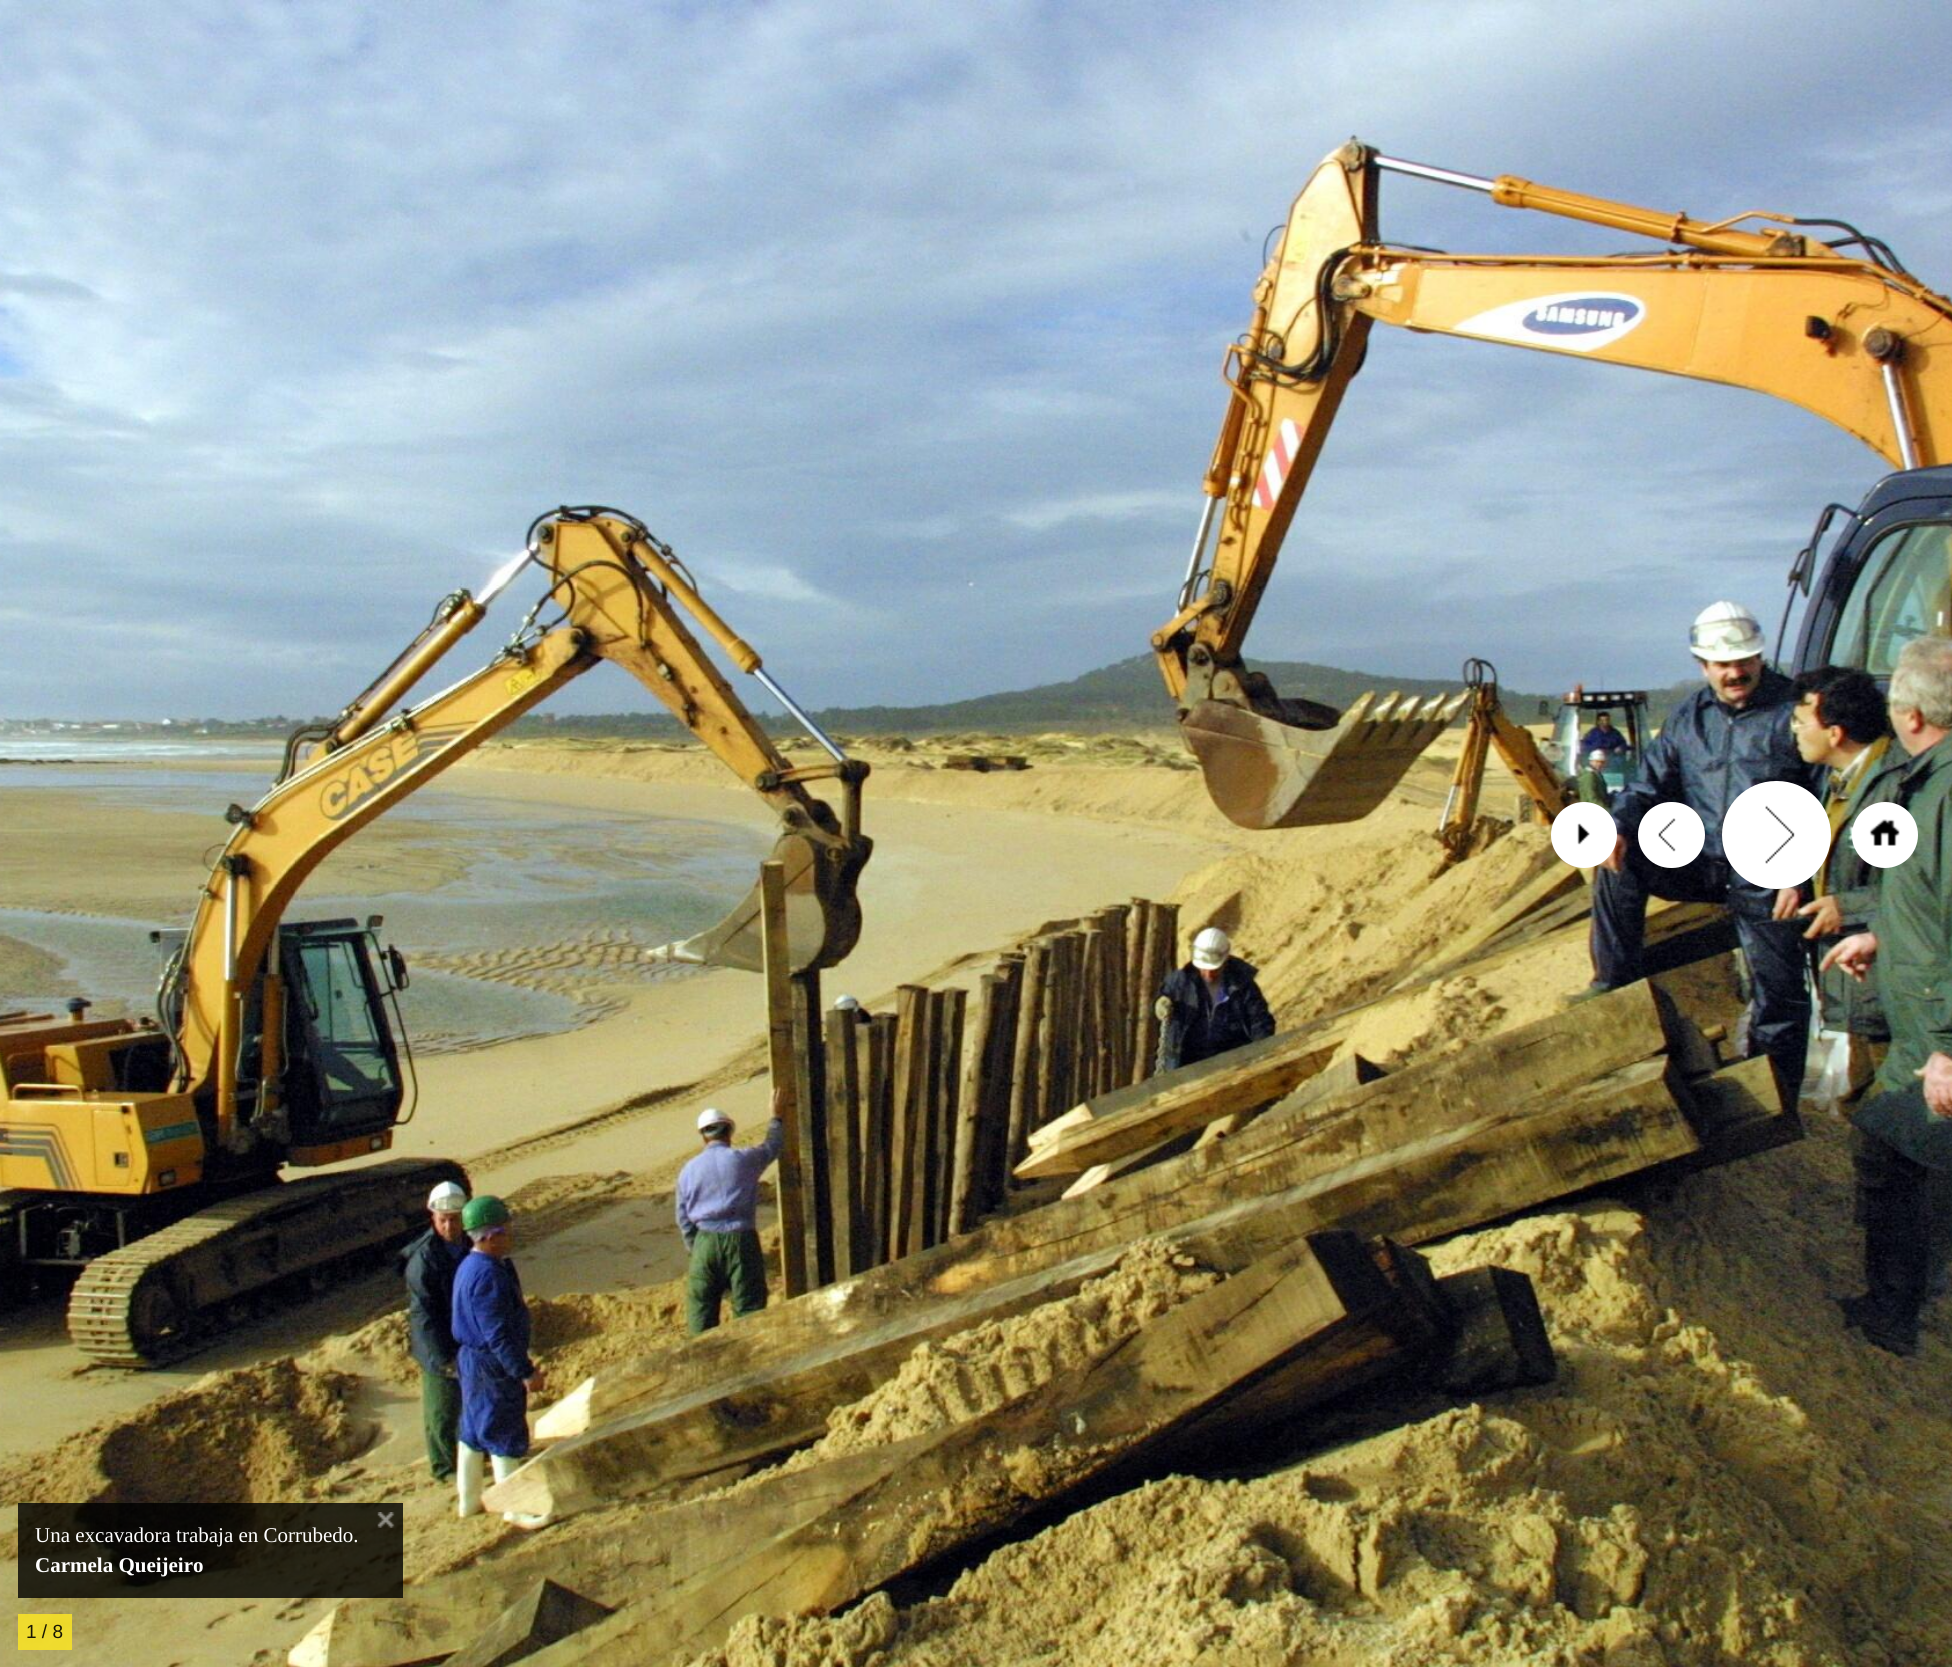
import math
import cairo

surface = cairo.ImageSurface(cairo.FORMAT_RGB24, 1952, 1667)
cr = cairo.Context(surface)
options = cairo.FontOptions()
options.set_hint_metrics(cairo.HINT_METRICS_OFF)
options.set_hint_style(cairo.HINT_STYLE_NONE)
cr.set_font_options(options)
cr.set_miter_limit(4)


def rgb(code):
    cr.set_source_rgb(*(v / 255 for v in bytes.fromhex(code[-6:])))


def rrect(x, y, w, h, r):
    cr.new_sub_path()
    for i, (u, v) in enumerate([(x + w - r, y + h - r), (x + r, y + h - r), (x + r, y + r), (x + w - r, y + r)]):
        cr.arc(u, v, r, i * math.pi / 2, (i + 1) * math.pi / 2)
    cr.close_path()


def image(path, x, y, w, h):
    cr.save()
    cr.set_source_surface(cairo.ImageSurface.create_from_png(path), x, y)
    cr.rectangle(x, y, w, h)
    cr.fill()
    cr.restore()


rgb("#ffffff")
cr.paint()
image("img/4.png", 0, 0, 1952, 1667)
rgb("#ffffff")
cr.arc(1584, 835, 33, 0, 2 * math.pi)
cr.fill()
image("img/1.png", 1577, 823, 13, 22)
cr.arc(1885, 835, 33, 0, 2 * math.pi)
cr.fill()
image("img/2.png", 1869, 819, 31, 27)
cr.set_source_rgba(0, 0, 0, 0.8)
cr.rectangle(18, 1503, 385, 95)
cr.fill()
image("img/3.png", 377, 1512, 18, 16)
rgb("#ffffff")
rrect(1638, 802, 67, 66, 33)
cr.fill()
image("img/5.png", 1658, 818, 18, 34)
rrect(1722, 781, 109, 108, 54)
cr.fill()
image("img/6.png", 1765, 805, 30, 59)
cr.set_source_rgba(0.965, 0.882, 0.157, 0.9)
cr.rectangle(18, 1614, 54, 36)
cr.fill()
cr.select_font_face("Liberation Serif")
cr.set_font_size(21)
rgb("#ffffff")
cr.move_to(35, 1542)
cr.show_text("Una excavadora trabaja en Corrubedo.")
cr.select_font_face("Liberation Serif", cairo.FONT_SLANT_NORMAL, cairo.FONT_WEIGHT_BOLD)
cr.move_to(35, 1572)
cr.show_text("Carmela Queijeiro")
cr.select_font_face("Liberation Sans")
cr.set_font_size(19)
rgb("#181604")
cr.move_to(26, 1638)
cr.show_text("1 / 8")
surface.write_to_png("page.png")
